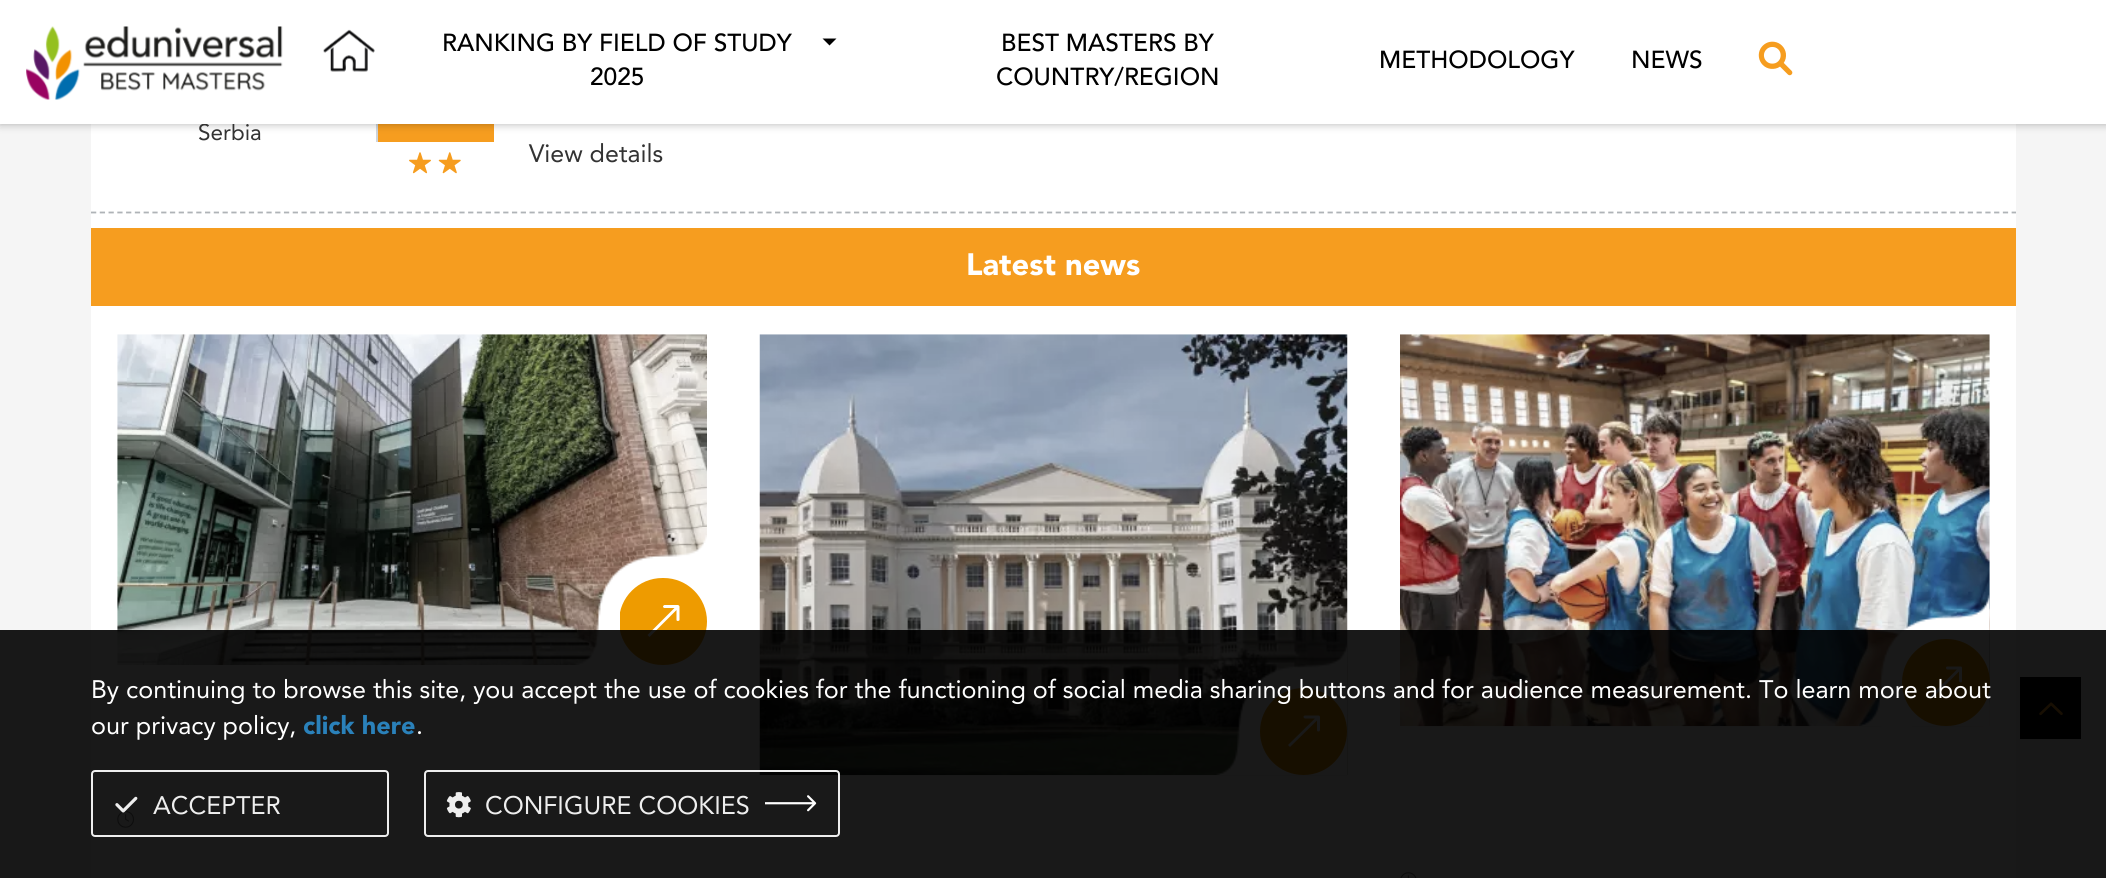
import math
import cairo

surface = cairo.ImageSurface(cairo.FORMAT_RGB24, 2106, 878)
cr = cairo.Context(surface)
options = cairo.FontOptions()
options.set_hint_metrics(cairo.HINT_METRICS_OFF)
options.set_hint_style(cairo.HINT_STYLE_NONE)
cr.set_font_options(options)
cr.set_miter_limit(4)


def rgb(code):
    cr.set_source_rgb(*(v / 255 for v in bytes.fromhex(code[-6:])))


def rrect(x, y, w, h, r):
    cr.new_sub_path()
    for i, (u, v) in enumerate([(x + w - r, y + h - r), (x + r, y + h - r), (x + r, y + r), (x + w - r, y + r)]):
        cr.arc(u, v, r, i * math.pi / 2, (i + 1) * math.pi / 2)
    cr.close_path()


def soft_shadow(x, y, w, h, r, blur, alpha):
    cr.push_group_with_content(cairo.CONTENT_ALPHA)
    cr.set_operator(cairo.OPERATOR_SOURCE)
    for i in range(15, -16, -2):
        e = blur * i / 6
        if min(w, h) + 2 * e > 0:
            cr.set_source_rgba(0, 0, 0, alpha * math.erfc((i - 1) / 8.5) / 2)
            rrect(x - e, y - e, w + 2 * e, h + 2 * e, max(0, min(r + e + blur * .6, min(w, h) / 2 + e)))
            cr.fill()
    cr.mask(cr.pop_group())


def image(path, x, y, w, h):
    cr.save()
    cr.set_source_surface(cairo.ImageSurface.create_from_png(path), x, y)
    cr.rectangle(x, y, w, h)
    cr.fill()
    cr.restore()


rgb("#f5f5f5")
cr.paint()
for x, y, w, h, color in [
    (91, 124, 1925, 754, "#ffffff"),
    (378, 124, 116, 18, "#f69d1f"),
    (376, 124, 2, 18, "#ced4da"),
]:
    rgb(color)
    cr.rectangle(x, y, w, h)
    cr.fill()
rgb("#000000")
soft_shadow(0, 0, 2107, 124, 0, 4.5, 0.3)
cr.new_path()
cr.move_to(91, 212.5)
cr.line_to(2016, 212.5)
rgb("#afb3b7")
cr.set_line_width(1.8)
cr.set_dash([5.25, 3.52])
cr.stroke()
image("img/4.png", 409, 152, 22, 22)
image("img/5.png", 438, 152, 23, 22)
rgb("#f69d1f")
cr.rectangle(91, 228, 1925, 78)
cr.fill()
image("img/6.png", 117, 334, 590, 331)
image("img/7.png", 575, 535, 132, 130)
cr.save()
cr.rectangle(620, 578, 87, 87)
cr.clip()
rgb("#ee9b00")
rrect(619, 578, 88, 87, 43.5)
cr.fill()
cr.restore()
rgb("#ffffff")
cr.new_path()
cr.move_to(679.5, 606.5)
cr.curve_to(679.5, 606, 678.5, 605, 678, 605)
cr.line_to(664.5, 605)
cr.curve_to(664, 605, 663, 606, 663, 606.5)
cr.curve_to(663, 607.5, 664, 608, 664.5, 608)
cr.line_to(676.5, 608)
cr.line_to(676.5, 620)
cr.curve_to(676.5, 620.5, 677, 621, 678, 621)
cr.curve_to(678.5, 621, 679.5, 620.5, 679.5, 620)
cr.close_path()
cr.move_to(648.5, 636)
cr.line_to(649.5, 637)
cr.line_to(679, 607.5)
cr.line_to(677, 605.5)
cr.line_to(647.5, 635)
cr.close_path()
cr.fill()
image("img/8.png", 117, 811, 17, 17)
image("img/9.png", 759, 334, 589, 442)
image("img/10.png", 1216, 643, 132, 132)
rgb("#ee9b00")
cr.arc(1303.5, 731.5, 43.5, 0, 2 * math.pi)
cr.fill()
rgb("#ffffff")
cr.new_path()
cr.move_to(1320, 717)
cr.curve_to(1320, 716, 1319, 715.5, 1318.5, 715.5)
cr.line_to(1305, 715.5)
cr.curve_to(1304.5, 715.5, 1303.5, 716, 1303.5, 717)
cr.curve_to(1303.5, 717.5, 1304.5, 718.5, 1305, 718.5)
cr.line_to(1317, 718.5)
cr.line_to(1317, 730)
cr.curve_to(1317, 731, 1317.5, 731.5, 1318.5, 731.5)
cr.curve_to(1319, 731.5, 1320, 731, 1320, 730)
cr.close_path()
cr.move_to(1289, 746)
cr.line_to(1290, 747)
cr.line_to(1319.5, 718)
cr.line_to(1317.5, 716)
cr.line_to(1288, 745)
cr.close_path()
cr.fill()
image("img/11.png", 1400, 334, 590, 393)
image("img/12.png", 1858, 594, 132, 132)
rgb("#ee9b00")
rrect(1902, 639, 88, 87, 43.5)
cr.fill()
rgb("#ffffff")
cr.new_path()
cr.move_to(1962, 668)
cr.curve_to(1962, 667, 1961.5, 666.5, 1960.5, 666.5)
cr.line_to(1947.5, 666.5)
cr.curve_to(1946.5, 666.5, 1946, 667, 1946, 668)
cr.curve_to(1946, 668.5, 1946.5, 669.5, 1947.5, 669.5)
cr.line_to(1959, 669.5)
cr.line_to(1959, 681)
cr.curve_to(1959, 682, 1960, 682.5, 1960.5, 682.5)
cr.curve_to(1961.5, 682.5, 1962, 682, 1962, 681)
cr.close_path()
cr.move_to(1931.5, 697)
cr.line_to(1932.5, 698)
cr.line_to(1961.5, 669)
cr.line_to(1959.5, 667)
cr.line_to(1930.5, 696)
cr.close_path()
cr.fill()
image("img/13.png", 1400, 872, 17, 6)
rgb("#000000")
cr.rectangle(2020, 677, 61, 62)
cr.fill()
image("img/17.png", 2039, 702, 24, 14)
cr.set_source_rgba(0, 0, 0, 0.9)
cr.rectangle(0, 630, 2106, 248)
cr.fill()
rrect(92, 771, 296, 65, 3)
rgb("#eeeeee")
cr.set_line_width(2)
cr.set_dash([])
cr.stroke()
image("img/14.png", 115, 796, 23, 17)
rrect(425, 771, 414, 65, 3)
cr.stroke()
image("img/15.png", 446, 792, 25, 26)
image("img/16.png", 765, 795, 52, 17)
cr.select_font_face("Avenir")
cr.set_font_size(22.5)
rgb("#333333")
cr.move_to(198, 140)
cr.show_text("Serbia")
rgb("#ffffff")
cr.rectangle(0, 0, 2106, 124)
cr.fill()
cr.select_font_face("Avenir Medium")
cr.set_font_size(24.5)
rgb("#000000")
cr.move_to(590, 85)
cr.show_text("2025")
cr.move_to(442, 51)
cr.show_text("RANKING BY FIELD OF STUDY")
image("img/1.png", 26, 26, 257, 74)
cr.new_path()
cr.move_to(822.5, 38.5)
cr.line_to(836.5, 38.5)
cr.line_to(829.5, 45.5)
cr.close_path()
cr.fill()
image("img/3.png", 1758, 41, 35, 35)
for x, y, s in [
    (1631, 68, "NEWS"),
    (1379, 68, "METHODOLOGY"),
    (996, 85, "COUNTRY/REGION"),
    (1001, 51, "BEST MASTERS BY"),
]:
    cr.move_to(x, y)
    cr.show_text(s)
image("img/2.png", 323, 29, 52, 43)
cr.select_font_face("Avenir")
cr.set_font_size(25)
rgb("#333333")
cr.move_to(529, 162)
cr.show_text("View details")
cr.select_font_face("Avenir Black")
cr.set_font_size(30.75)
rgb("#ffffff")
cr.move_to(966, 275)
cr.show_text("Latest news")
cr.select_font_face("Avenir")
cr.set_font_size(25.2)
cr.move_to(91, 698)
cr.show_text("By continuing to browse this site, you accept the use of cookies for the functioning of social media sharing buttons and for audience measurement. To learn more about")
cr.move_to(91, 734)
cr.show_text("our privacy policy,")
cr.select_font_face("Avenir Black")
rgb("#2a81ba")
cr.move_to(303, 734)
cr.show_text("click here")
cr.select_font_face("Avenir")
rgb("#ffffff")
cr.move_to(416, 734)
cr.show_text(".")
rgb("#eeeeee")
cr.move_to(153, 814)
cr.show_text("ACCEPTER")
cr.move_to(485, 814)
cr.show_text("CONFIGURE COOKIES")
surface.write_to_png("page.png")
